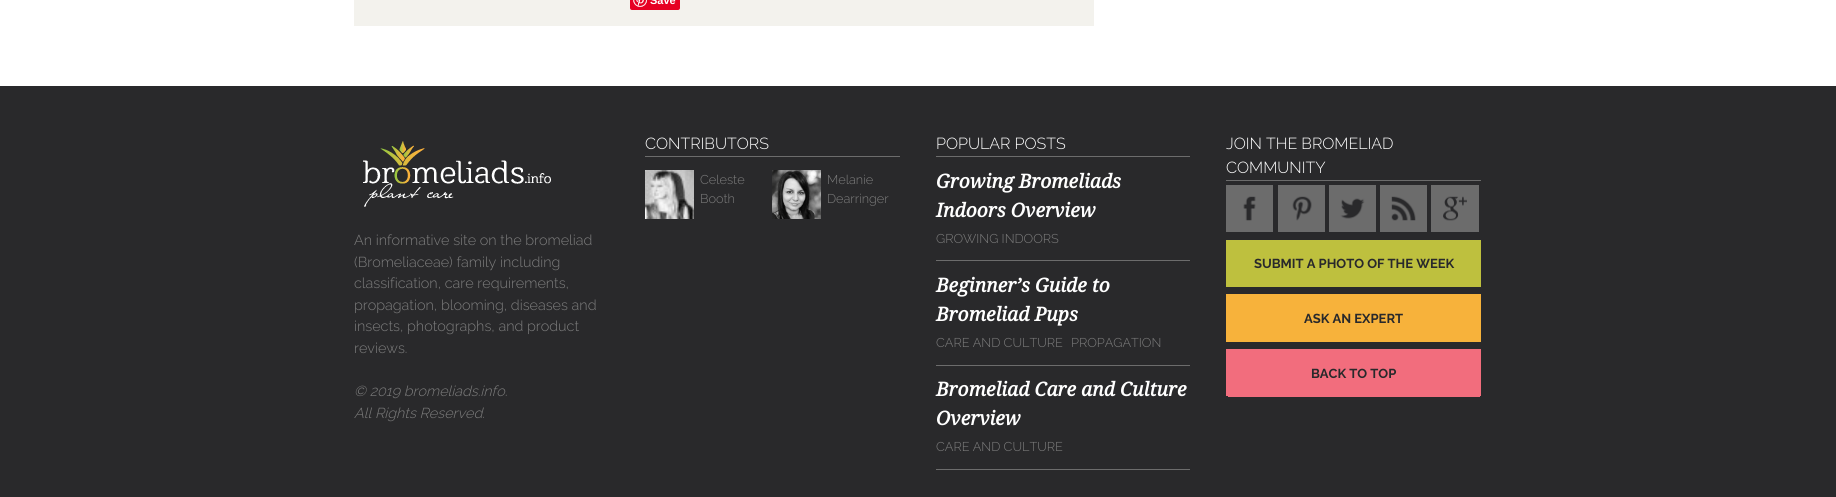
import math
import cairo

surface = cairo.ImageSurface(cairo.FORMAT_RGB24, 1836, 497)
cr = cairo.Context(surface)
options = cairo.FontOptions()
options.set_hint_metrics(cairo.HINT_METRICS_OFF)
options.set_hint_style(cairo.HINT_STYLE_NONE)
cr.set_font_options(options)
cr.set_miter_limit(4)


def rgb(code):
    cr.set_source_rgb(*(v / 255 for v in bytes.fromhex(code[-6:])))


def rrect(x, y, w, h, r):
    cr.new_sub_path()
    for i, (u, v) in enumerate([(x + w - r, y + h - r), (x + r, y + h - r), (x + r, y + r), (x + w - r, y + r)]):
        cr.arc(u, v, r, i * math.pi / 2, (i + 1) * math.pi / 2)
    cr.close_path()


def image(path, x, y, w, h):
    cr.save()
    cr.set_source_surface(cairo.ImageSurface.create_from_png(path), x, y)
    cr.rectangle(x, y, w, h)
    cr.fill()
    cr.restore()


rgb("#29292b")
cr.paint()
rgb("#ffffff")
cr.rectangle(0, 0, 1836, 86)
cr.fill()
rgb("#f3f2ed")
cr.rectangle(354, 0, 740, 26)
cr.fill()
rgb("#e60023")
rrect(630, -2, 50, 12, 2)
cr.fill()
image("img/1.png", 633, 0, 14, 7)
image("img/2.png", 363, 141, 188, 66)
rgb("#6c6c6c")
cr.rectangle(645, 156, 255, 1)
cr.fill()
image("img/3.png", 645, 170, 49, 49)
image("img/4.png", 772, 170, 49, 49)
for x, y, w, h, color in [
    (936, 156, 254, 1, "#6c6c6c"),
    (936, 260, 254, 1, "#6c6c6c"),
    (936, 365, 254, 1, "#6c6c6c"),
    (936, 469, 254, 1, "#6c6c6c"),
    (1226, 180, 255, 1, "#6c6c6c"),
]:
    rgb(color)
    cr.rectangle(x, y, w, h)
    cr.fill()
image("img/5.png", 1226, 185, 47, 47)
image("img/6.png", 1278, 185, 47, 47)
image("img/7.png", 1329, 185, 47, 47)
image("img/8.png", 1380, 185, 47, 47)
image("img/9.png", 1431, 185, 48, 47)
for x, y, w, h, color in [
    (1226, 240, 255, 47, "#bec03e"),
    (1226, 294, 255, 48, "#f7b23b"),
    (1226, 349, 255, 47, "#f26d7d"),
    (1228, 396, 252, 1, "#f26d7d"),
]:
    rgb(color)
    cr.rectangle(x, y, w, h)
    cr.fill()
cr.select_font_face("Liberation Sans", cairo.FONT_SLANT_NORMAL, cairo.FONT_WEIGHT_BOLD)
cr.set_font_size(11)
rgb("#ffffff")
cr.move_to(650, 4)
cr.show_text("Save")
cr.select_font_face("Raleway Light")
cr.set_font_size(14.4)
rgb("#7d7d7d")
for x, y, s in [
    (354, 245, "An informative site on the bromeliad"),
    (354, 267, "(Bromeliaceae) family including"),
    (354, 288, "classification, care requirements,"),
    (354, 310, "propagation, blooming, diseases and"),
    (354, 331, "insects, photographs, and product"),
    (354, 353, "reviews."),
]:
    cr.move_to(x, y)
    cr.show_text(s)
cr.select_font_face("Raleway Light", cairo.FONT_SLANT_ITALIC)
cr.move_to(354, 396)
cr.show_text("© 2019 bromeliads.info.")
cr.move_to(354, 418)
cr.show_text("All Rights Reserved.")
cr.select_font_face("Raleway Light")
cr.set_font_size(16)
rgb("#ffffff")
cr.move_to(645, 149)
cr.show_text("CONTRIBUTORS")
cr.set_font_size(12.75)
rgb("#7d7d7d")
for x, y, s in [
    (700, 184, "Celeste"),
    (700, 203, "Booth"),
    (827, 184, "Melanie"),
    (827, 203, "Dearringer"),
]:
    cr.move_to(x, y)
    cr.show_text(s)
cr.set_font_size(16)
rgb("#ffffff")
cr.move_to(936, 149)
cr.show_text("POPULAR POSTS")
cr.select_font_face("Droid Serif", cairo.FONT_SLANT_ITALIC, cairo.FONT_WEIGHT_BOLD)
cr.set_font_size(19.25)
cr.move_to(936, 188)
cr.show_text("Growing Bromeliads")
cr.move_to(936, 217)
cr.show_text("Indoors Overview")
cr.select_font_face("Raleway Light")
cr.set_font_size(12.75)
rgb("#7d7d7d")
cr.move_to(936, 243)
cr.show_text("GROWING INDOORS")
cr.select_font_face("Droid Serif", cairo.FONT_SLANT_ITALIC, cairo.FONT_WEIGHT_BOLD)
cr.set_font_size(19.25)
rgb("#ffffff")
cr.move_to(936, 292)
cr.show_text("Beginner’s Guide to")
cr.move_to(936, 321)
cr.show_text("Bromeliad Pups")
cr.select_font_face("Raleway Light")
cr.set_font_size(12.75)
rgb("#7d7d7d")
cr.move_to(936, 347)
cr.show_text("CARE AND CULTURE")
cr.move_to(1071, 347)
cr.show_text("PROPAGATION")
cr.select_font_face("Droid Serif", cairo.FONT_SLANT_ITALIC, cairo.FONT_WEIGHT_BOLD)
cr.set_font_size(19.25)
rgb("#ffffff")
cr.move_to(936, 396)
cr.show_text("Bromeliad Care and Culture")
cr.move_to(936, 425)
cr.show_text("Overview")
cr.select_font_face("Raleway Light")
cr.set_font_size(12.75)
rgb("#7d7d7d")
cr.move_to(936, 451)
cr.show_text("CARE AND CULTURE")
cr.set_font_size(16)
rgb("#ffffff")
cr.move_to(1226, 149)
cr.show_text("JOIN THE BROMELIAD")
cr.move_to(1226, 173)
cr.show_text("COMMUNITY")
cr.select_font_face("Raleway", cairo.FONT_SLANT_NORMAL, cairo.FONT_WEIGHT_BOLD)
cr.set_font_size(13)
rgb("#29292b")
for x, y, s in [
    (1254, 268, "SUBMIT A PHOTO OF THE WEEK"),
    (1304, 323, "ASK AN EXPERT"),
    (1311, 378, "BACK TO TOP"),
]:
    cr.move_to(x, y)
    cr.show_text(s)
surface.write_to_png("page.png")
